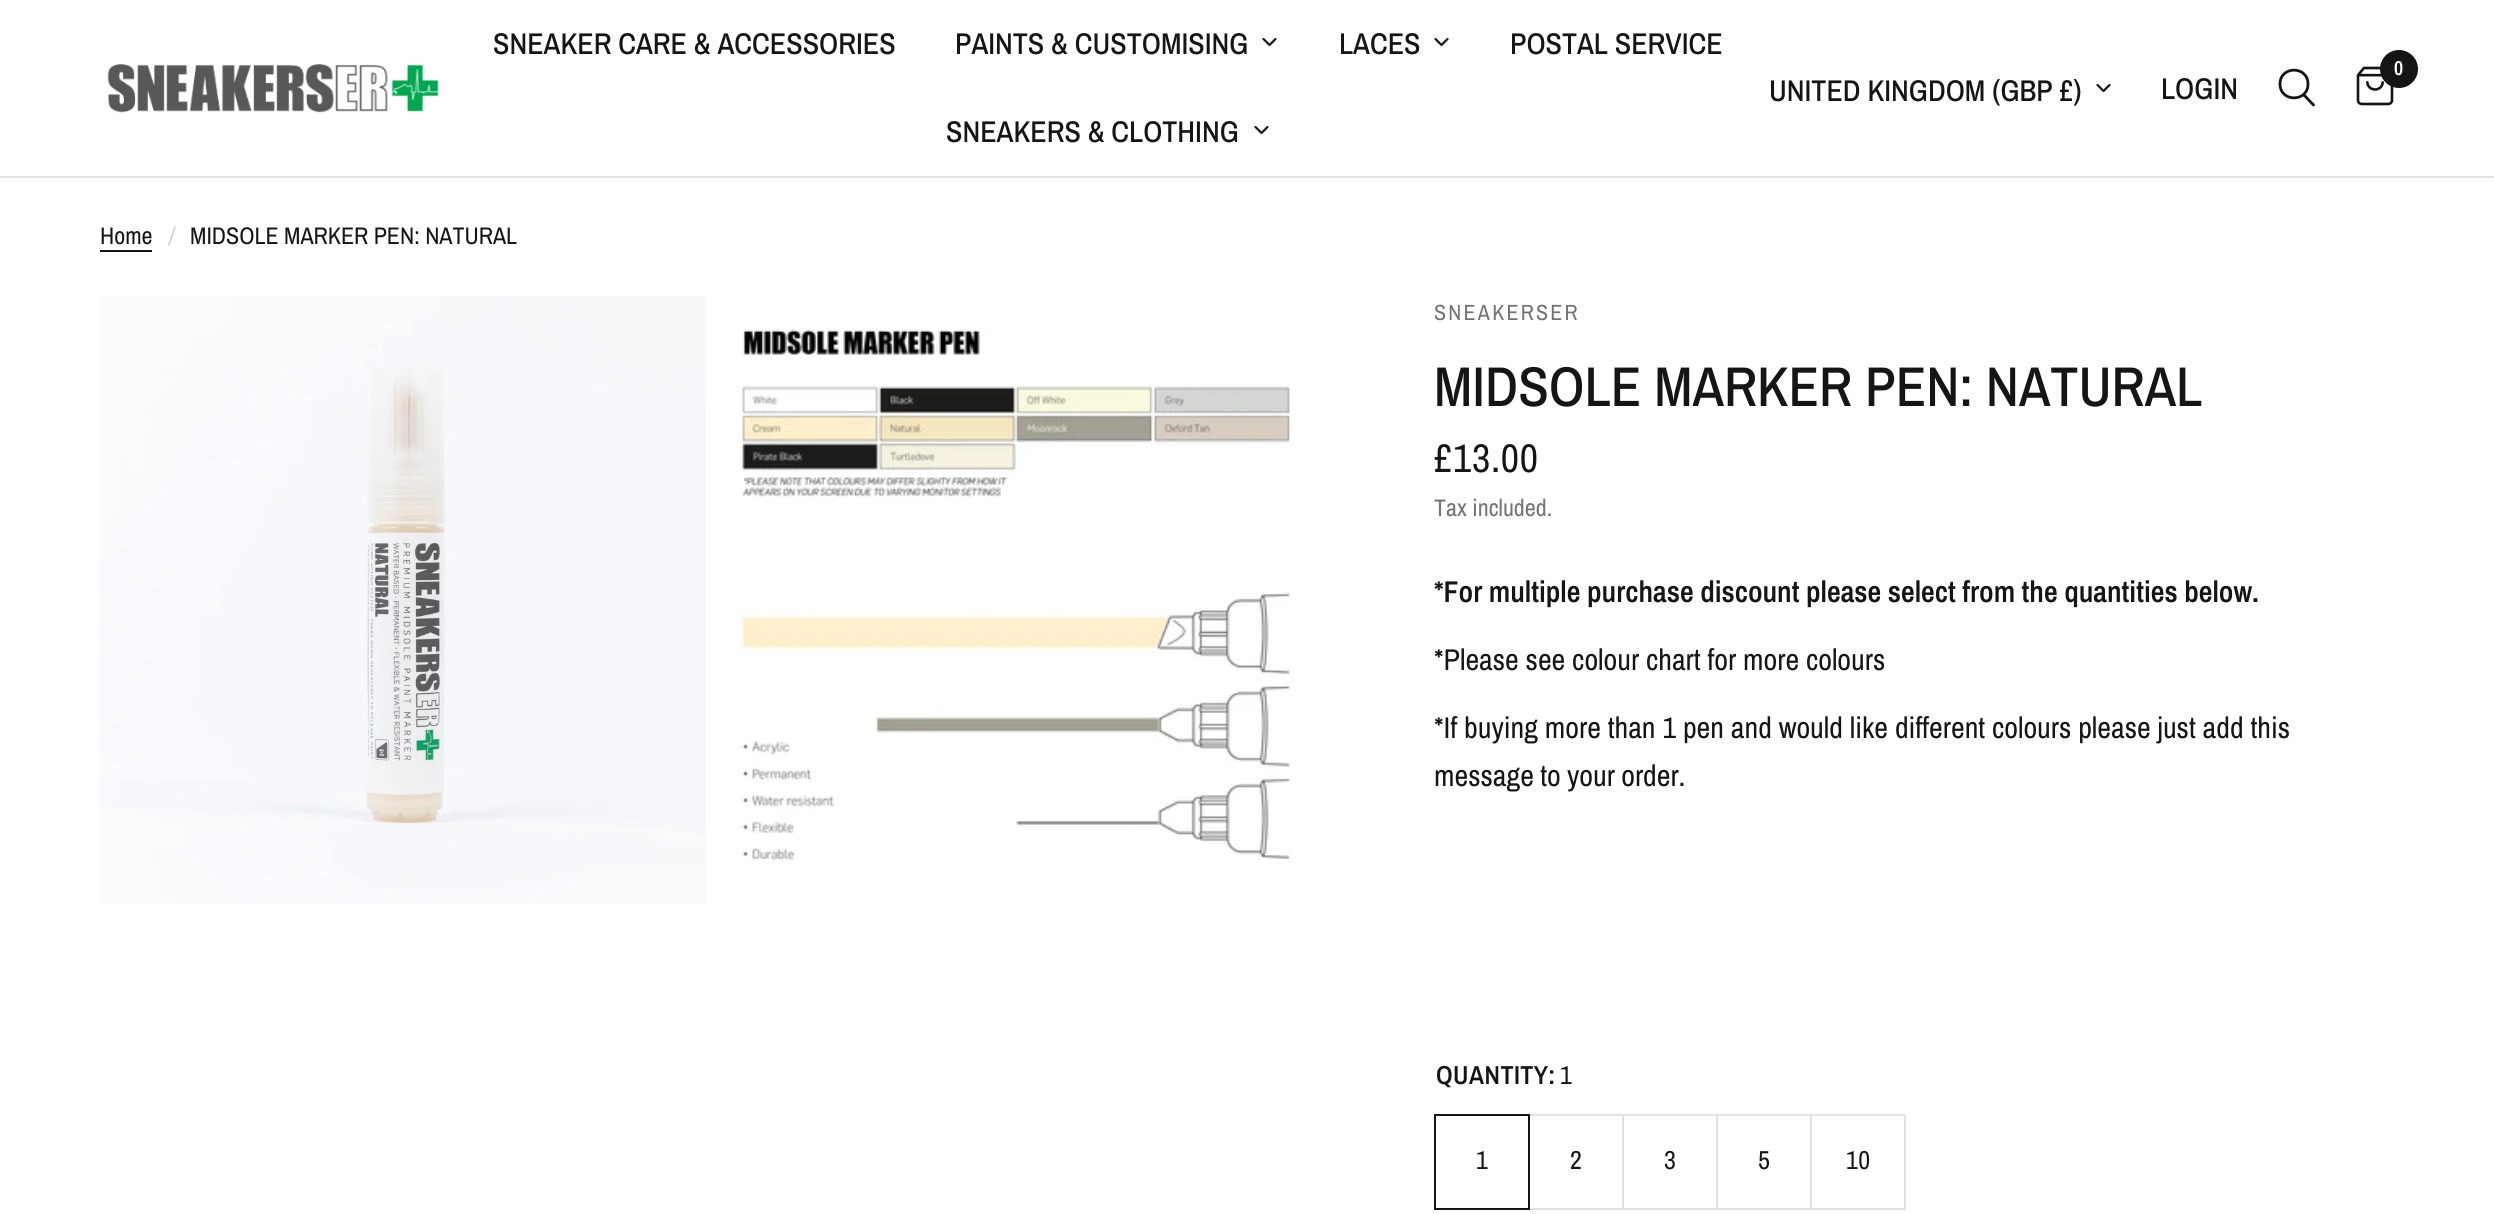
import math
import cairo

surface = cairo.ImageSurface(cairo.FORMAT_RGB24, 2494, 1214)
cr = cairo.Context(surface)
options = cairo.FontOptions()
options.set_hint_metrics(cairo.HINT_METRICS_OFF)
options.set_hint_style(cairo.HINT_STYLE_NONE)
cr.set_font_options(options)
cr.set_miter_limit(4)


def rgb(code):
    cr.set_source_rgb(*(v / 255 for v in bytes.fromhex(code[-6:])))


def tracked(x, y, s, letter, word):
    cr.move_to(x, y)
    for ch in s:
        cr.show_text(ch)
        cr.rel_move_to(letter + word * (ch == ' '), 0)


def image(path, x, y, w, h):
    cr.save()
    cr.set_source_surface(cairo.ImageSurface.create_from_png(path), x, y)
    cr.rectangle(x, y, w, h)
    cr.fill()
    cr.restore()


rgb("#ffffff")
cr.paint()
rgb("#e2e2e2")
cr.rectangle(0, 176, 2494, 2)
cr.fill()
image("img/1.png", 107, 64, 332, 49)
cr.new_path()
cr.move_to(1275.5, 39)
cr.line_to(1269.5, 45)
cr.line_to(1263.5, 39)
rgb("#151515")
cr.set_line_width(2.2)
cr.set_line_cap(cairo.LINE_CAP_ROUND)
cr.set_line_join(cairo.LINE_JOIN_ROUND)
cr.stroke()
cr.new_path()
cr.move_to(1447.5, 39)
cr.line_to(1441.5, 45)
cr.line_to(1435.5, 39)
cr.stroke()
cr.new_path()
cr.move_to(1267.5, 127)
cr.line_to(1261.5, 133)
cr.line_to(1255.5, 127)
cr.stroke()
cr.new_path()
cr.move_to(2109.5, 85)
cr.line_to(2103.5, 91)
cr.line_to(2097.5, 85)
cr.stroke()
cr.new_path()
cr.move_to(2304, 95)
cr.line_to(2313.5, 105)
cr.move_to(2308, 84)
cr.curve_to(2308, 102.5, 2280, 102.5, 2280, 84)
cr.curve_to(2280, 65.5, 2308, 65.5, 2308, 84)
cr.close_path()
cr.set_line_width(2.8)
cr.stroke()
image("img/2.png", 2356, 66, 38, 40)
cr.arc(2399, 69, 19, 0, 2 * math.pi)
cr.fill()
cr.rectangle(100, 250, 52, 2)
cr.fill()
image("img/3.png", 100, 296, 606, 608)
image("img/4.png", 738, 329, 555, 532)
cr.rectangle(1529, 1115, 94, 94)
rgb("#e2e2e2")
cr.set_line_width(2)
cr.set_line_cap(cairo.LINE_CAP_BUTT)
cr.set_line_join(cairo.LINE_JOIN_MITER)
cr.stroke()
cr.rectangle(1435, 1115, 94, 94)
rgb("#151515")
cr.stroke()
cr.rectangle(1623, 1115, 94, 94)
rgb("#e2e2e2")
cr.stroke()
cr.rectangle(1717, 1115, 94, 94)
cr.stroke()
cr.rectangle(1811, 1115, 94, 94)
cr.stroke()
cr.select_font_face("Archivo Narrow Medium")
cr.set_font_size(30)
rgb("#151515")
for x, y, s in [
    (493, 54, "SNEAKER CARE & ACCESSORIES"),
    (955, 54, "PAINTS & CUSTOMISING"),
    (1339, 54, "LACES"),
    (1510, 54, "POSTAL SERVICE"),
    (946, 142, "SNEAKERS & CLOTHING"),
    (1769, 101, "UNITED KINGDOM (GBP £)"),
    (2161, 99, "LOGIN"),
]:
    cr.move_to(x, y)
    cr.show_text(s)
cr.select_font_face("Archivo Narrow SemiBold")
cr.set_font_size(20)
rgb("#ffffff")
cr.move_to(2394, 75)
cr.show_text("0")
cr.select_font_face("Archivo Narrow")
cr.set_font_size(24)
rgb("#151515")
cr.move_to(100, 244)
cr.show_text("Home")
cr.select_font_face("Archivo Narrow", cairo.FONT_SLANT_ITALIC)
rgb("#d0d0d0")
cr.move_to(169, 244)
cr.show_text("/")
cr.select_font_face("Archivo Narrow")
rgb("#151515")
cr.move_to(190, 244)
cr.show_text("MIDSOLE MARKER PEN: NATURAL")
cr.set_font_size(22)
rgb("#737373")
tracked(1434, 320, "SNEAKERSER", 2.25, 0)
cr.select_font_face("Archivo Narrow Medium")
cr.set_font_size(56)
rgb("#151515")
cr.move_to(1434, 406)
cr.show_text("MIDSOLE MARKER PEN: NATURAL")
cr.select_font_face("Archivo Narrow")
cr.set_font_size(40)
tracked(1434, 472, "£13.00", 0.75, 0)
cr.set_font_size(24)
rgb("#737373")
cr.move_to(1434, 516)
cr.show_text("Tax included.")
cr.select_font_face("Archivo Narrow SemiBold")
cr.set_font_size(30)
rgb("#151515")
tracked(1434, 602, "*For multiple purchase discount please select from the quantities below.", 0, -0.25)
cr.select_font_face("Archivo Narrow")
cr.move_to(1434, 670)
cr.show_text("*Please see colour chart for more colours")
cr.move_to(1434, 738)
cr.show_text("*If buying more than 1 pen and would like different colours please just add this")
tracked(1434, 786, "message to your order.", 0, -0.5)
cr.select_font_face("Archivo Narrow SemiBold")
cr.set_font_size(26)
tracked(1436, 1084, "QUANTITY:", 0.5, 0)
cr.select_font_face("Archivo Narrow")
for x, y, s in [
    (1560, 1084, "1"),
    (1476, 1169, "1"),
    (1570, 1169, "2"),
    (1664, 1169, "3"),
    (1758, 1169, "5"),
    (1846, 1169, "10"),
]:
    tracked(x, y, s, 0.5, 0)
surface.write_to_png("page.png")
